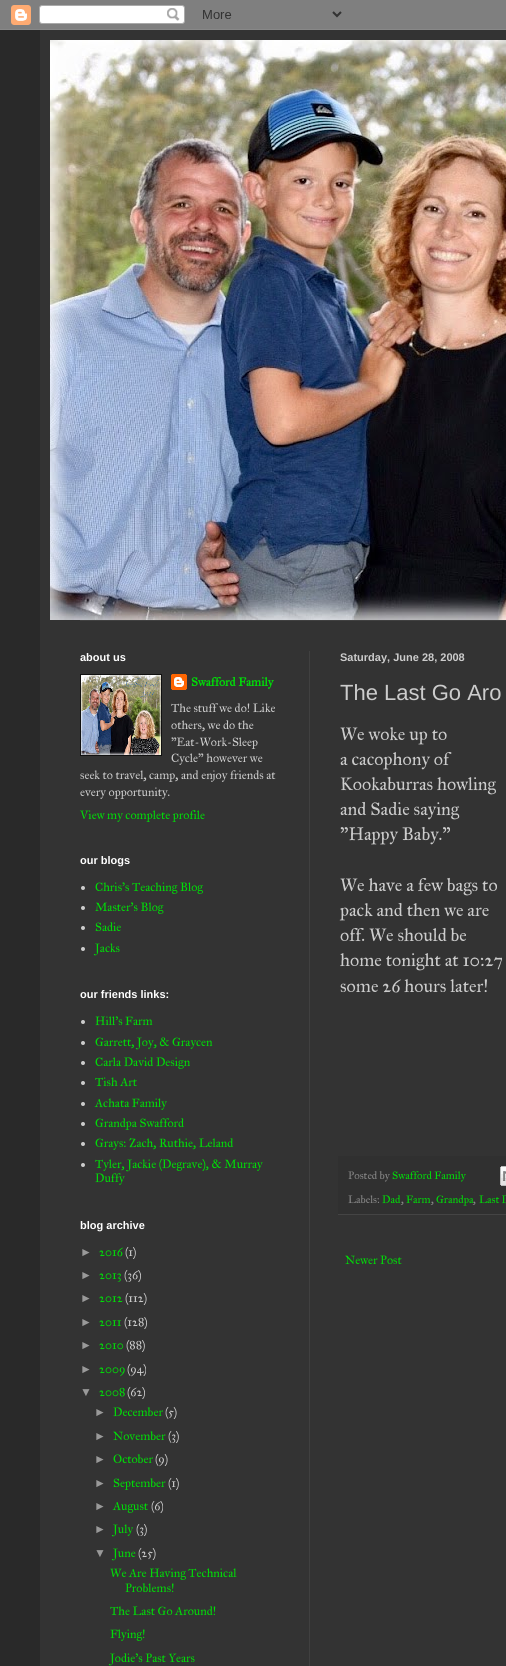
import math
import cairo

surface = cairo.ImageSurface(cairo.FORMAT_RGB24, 506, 1666)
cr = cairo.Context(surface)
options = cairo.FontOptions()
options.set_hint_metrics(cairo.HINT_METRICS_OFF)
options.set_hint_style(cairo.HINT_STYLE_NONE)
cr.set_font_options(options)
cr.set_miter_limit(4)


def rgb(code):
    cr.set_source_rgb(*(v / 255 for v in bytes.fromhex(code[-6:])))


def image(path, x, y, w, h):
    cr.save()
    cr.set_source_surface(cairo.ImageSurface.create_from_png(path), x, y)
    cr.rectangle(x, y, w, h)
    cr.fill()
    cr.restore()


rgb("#292929")
cr.paint()
image("img/1.png", 0, 0, 506, 30)
rgb("#333333")
cr.rectangle(40, 30, 466, 1636)
cr.fill()
image("img/2.png", 50, 40, 456, 580)
for x, y, w, h, color in [
    (80, 620, 426, 1, "#404040"),
    (309, 651, 1, 1015, "#404040"),
    (80, 674, 82, 82, "#111111"),
]:
    rgb(color)
    cr.rectangle(x, y, w, h)
    cr.fill()
image("img/3.png", 81, 675, 80, 80)
image("img/4.png", 171, 674, 16, 16)
rgb("#cccccc")
cr.arc(83, 888, 2, 0, 2 * math.pi)
cr.fill()
cr.arc(83, 908, 2, 0, 2 * math.pi)
cr.fill()
cr.arc(83, 928, 2, 0, 2 * math.pi)
cr.fill()
cr.arc(83, 949, 2, 0, 2 * math.pi)
cr.fill()
cr.arc(83, 1022, 2, 0, 2 * math.pi)
cr.fill()
cr.arc(83, 1043, 2, 0, 2 * math.pi)
cr.fill()
cr.arc(83, 1063, 2, 0, 2 * math.pi)
cr.fill()
cr.arc(83, 1083, 2, 0, 2 * math.pi)
cr.fill()
cr.arc(83, 1104, 2, 0, 2 * math.pi)
cr.fill()
cr.arc(83, 1124, 2, 0, 2 * math.pi)
cr.fill()
cr.arc(83, 1144, 2, 0, 2 * math.pi)
cr.fill()
cr.arc(83, 1165, 2, 0, 2 * math.pi)
cr.fill()
rgb("#303030")
cr.rectangle(338, 1156, 168, 58)
cr.fill()
rgb("#444444")
cr.rectangle(338, 1214, 168, 1)
cr.fill()
image("img/5.png", 500, 1166, 6, 20)
cr.select_font_face("Liberation Sans", cairo.FONT_SLANT_NORMAL, cairo.FONT_WEIGHT_BOLD)
cr.set_font_size(11)
rgb("#ffffff")
cr.move_to(80, 661)
cr.show_text("about us")
cr.select_font_face("IM FELL Great Primer", cairo.FONT_SLANT_NORMAL, cairo.FONT_WEIGHT_BOLD)
cr.set_font_size(12)
rgb("#00dd07")
cr.move_to(191, 686)
cr.show_text("Swafford Family")
cr.select_font_face("IM FELL Great Primer")
rgb("#cccccc")
for x, y, s in [
    (171, 712, "The stuff we do! Like"),
    (171, 729, "others, we do the"),
    (171, 746, "\"Eat-Work-Sleep"),
    (171, 762, "Cycle\" however we"),
    (80, 779, "seek to travel, camp, and enjoy friends at"),
    (80, 796, "every opportunity."),
]:
    cr.move_to(x, y)
    cr.show_text(s)
rgb("#00dd07")
cr.move_to(80, 819)
cr.show_text("View my complete profile")
cr.select_font_face("Liberation Sans", cairo.FONT_SLANT_NORMAL, cairo.FONT_WEIGHT_BOLD)
cr.set_font_size(11)
rgb("#ffffff")
cr.move_to(80, 864)
cr.show_text("our blogs")
cr.select_font_face("IM FELL Great Primer")
cr.set_font_size(12)
rgb("#00dd07")
for x, y, s in [
    (95, 891, "Chris's Teaching Blog"),
    (95, 911, "Master's Blog"),
    (95, 931, "Sadie"),
    (95, 952, "Jacks"),
]:
    cr.move_to(x, y)
    cr.show_text(s)
cr.select_font_face("Liberation Sans", cairo.FONT_SLANT_NORMAL, cairo.FONT_WEIGHT_BOLD)
cr.set_font_size(11)
rgb("#ffffff")
cr.move_to(80, 998)
cr.show_text("our friends links:")
cr.select_font_face("IM FELL Great Primer")
cr.set_font_size(12)
rgb("#00dd07")
for x, y, s in [
    (95, 1025, "Hill's Farm"),
    (95, 1046, "Garrett, Joy, & Graycen"),
    (95, 1066, "Carla David Design"),
    (95, 1086, "Tish Art"),
    (95, 1107, "Achata Family"),
    (95, 1127, "Grandpa Swafford"),
    (95, 1147, "Grays: Zach, Ruthie, Leland"),
    (95, 1168, "Tyler, Jackie (Degrave), & Murray"),
    (95, 1182, "Duffy"),
]:
    cr.move_to(x, y)
    cr.show_text(s)
cr.select_font_face("Liberation Sans", cairo.FONT_SLANT_NORMAL, cairo.FONT_WEIGHT_BOLD)
cr.set_font_size(11)
rgb("#ffffff")
cr.move_to(80, 1229)
cr.show_text("blog archive")
cr.select_font_face("Liberation Sans")
cr.set_font_size(12)
rgb("#999999")
cr.move_to(80, 1256)
cr.show_text("►")
cr.select_font_face("IM FELL Great Primer")
rgb("#00dd07")
cr.move_to(99, 1256)
cr.show_text("2016")
rgb("#cccccc")
cr.move_to(125, 1256)
cr.show_text("(1)")
cr.select_font_face("Liberation Sans")
rgb("#999999")
cr.move_to(80, 1279)
cr.show_text("►")
cr.select_font_face("IM FELL Great Primer")
rgb("#00dd07")
cr.move_to(99, 1279)
cr.show_text("2013")
rgb("#cccccc")
cr.move_to(124, 1279)
cr.show_text("(36)")
cr.select_font_face("Liberation Sans")
rgb("#999999")
cr.move_to(80, 1302)
cr.show_text("►")
cr.select_font_face("IM FELL Great Primer")
rgb("#00dd07")
cr.move_to(99, 1302)
cr.show_text("2012")
rgb("#cccccc")
cr.move_to(125, 1302)
cr.show_text("(112)")
cr.select_font_face("Liberation Sans")
rgb("#999999")
cr.move_to(80, 1326)
cr.show_text("►")
cr.select_font_face("IM FELL Great Primer")
rgb("#00dd07")
cr.move_to(99, 1326)
cr.show_text("2011")
rgb("#cccccc")
cr.move_to(124, 1326)
cr.show_text("(128)")
cr.select_font_face("Liberation Sans")
rgb("#999999")
cr.move_to(80, 1349)
cr.show_text("►")
cr.select_font_face("IM FELL Great Primer")
rgb("#00dd07")
cr.move_to(99, 1349)
cr.show_text("2010")
rgb("#cccccc")
cr.move_to(126, 1349)
cr.show_text("(88)")
cr.select_font_face("Liberation Sans")
rgb("#999999")
cr.move_to(80, 1373)
cr.show_text("►")
cr.select_font_face("IM FELL Great Primer")
rgb("#00dd07")
cr.move_to(99, 1373)
cr.show_text("2009")
rgb("#cccccc")
cr.move_to(127, 1373)
cr.show_text("(94)")
cr.select_font_face("Liberation Sans")
rgb("#999999")
cr.move_to(80, 1396)
cr.show_text("▼")
cr.select_font_face("IM FELL Great Primer")
rgb("#00dd07")
cr.move_to(99, 1396)
cr.show_text("2008")
rgb("#cccccc")
cr.move_to(127, 1396)
cr.show_text("(62)")
cr.select_font_face("Liberation Sans")
rgb("#999999")
cr.move_to(94, 1416)
cr.show_text("►")
cr.select_font_face("IM FELL Great Primer")
rgb("#00dd07")
cr.move_to(113, 1416)
cr.show_text("December")
rgb("#cccccc")
cr.move_to(165, 1416)
cr.show_text("(5)")
cr.select_font_face("Liberation Sans")
rgb("#999999")
cr.move_to(94, 1440)
cr.show_text("►")
cr.select_font_face("IM FELL Great Primer")
rgb("#00dd07")
cr.move_to(113, 1440)
cr.show_text("November")
rgb("#cccccc")
cr.move_to(168, 1440)
cr.show_text("(3)")
cr.select_font_face("Liberation Sans")
rgb("#999999")
cr.move_to(94, 1463)
cr.show_text("►")
cr.select_font_face("IM FELL Great Primer")
rgb("#00dd07")
cr.move_to(113, 1463)
cr.show_text("October")
rgb("#cccccc")
cr.move_to(155, 1463)
cr.show_text("(9)")
cr.select_font_face("Liberation Sans")
rgb("#999999")
cr.move_to(94, 1487)
cr.show_text("►")
cr.select_font_face("IM FELL Great Primer")
rgb("#00dd07")
cr.move_to(113, 1487)
cr.show_text("September")
rgb("#cccccc")
cr.move_to(168, 1487)
cr.show_text("(1)")
cr.select_font_face("Liberation Sans")
rgb("#999999")
cr.move_to(94, 1510)
cr.show_text("►")
cr.select_font_face("IM FELL Great Primer")
rgb("#00dd07")
cr.move_to(113, 1510)
cr.show_text("August")
rgb("#cccccc")
cr.move_to(151, 1510)
cr.show_text("(6)")
cr.select_font_face("Liberation Sans")
rgb("#999999")
cr.move_to(94, 1533)
cr.show_text("►")
cr.select_font_face("IM FELL Great Primer")
rgb("#00dd07")
cr.move_to(113, 1533)
cr.show_text("July")
rgb("#cccccc")
cr.move_to(136, 1533)
cr.show_text("(3)")
cr.select_font_face("Liberation Sans")
rgb("#999999")
cr.move_to(94, 1557)
cr.show_text("▼")
cr.select_font_face("IM FELL Great Primer")
rgb("#00dd07")
cr.move_to(113, 1557)
cr.show_text("June")
rgb("#cccccc")
cr.move_to(138, 1557)
cr.show_text("(25)")
rgb("#00dd07")
for x, y, s in [
    (110, 1577, "We Are Having Technical"),
    (125, 1592, "Problems!"),
    (110, 1615, "The Last Go Around!"),
    (110, 1638, "Flying!"),
    (110, 1662, "Jodie's Past Years"),
]:
    cr.move_to(x, y)
    cr.show_text(s)
cr.select_font_face("Liberation Sans", cairo.FONT_SLANT_NORMAL, cairo.FONT_WEIGHT_BOLD)
cr.set_font_size(11)
rgb("#cccccc")
cr.move_to(340, 661)
cr.show_text("Saturday, June 28, 2008")
cr.select_font_face("Liberation Sans")
cr.set_font_size(22)
cr.move_to(340, 700)
cr.show_text("The Last Go Aro")
cr.select_font_face("IM FELL Great Primer")
cr.set_font_size(18)
for x, y, s in [
    (340, 740, "We woke up to"),
    (340, 765, "a cacophony of"),
    (340, 790, "Kookaburras howling"),
    (340, 815, "and Sadie saying"),
    (340, 840, "\"Happy Baby.\""),
    (340, 891, "We have a few bags to"),
    (340, 916, "pack and then we are"),
    (340, 941, "off. We should be"),
    (340, 966, "home tonight at 10:27"),
    (340, 992, "some 26 hours later!"),
]:
    cr.move_to(x, y)
    cr.show_text(s)
cr.set_font_size(10.75)
rgb("#888888")
cr.move_to(348, 1179)
cr.show_text("Posted by")
rgb("#00dd07")
cr.move_to(392, 1179)
cr.show_text("Swafford Family")
rgb("#888888")
cr.move_to(348, 1203)
cr.show_text("Labels:")
rgb("#00dd07")
cr.move_to(382, 1203)
cr.show_text("Dad")
rgb("#888888")
cr.move_to(401, 1203)
cr.show_text(",")
rgb("#00dd07")
cr.move_to(406, 1203)
cr.show_text("Farm")
rgb("#888888")
cr.move_to(431, 1203)
cr.show_text(",")
rgb("#00dd07")
cr.move_to(436, 1203)
cr.show_text("Grandpa")
rgb("#888888")
cr.move_to(473, 1203)
cr.show_text(",")
rgb("#00dd07")
cr.move_to(479, 1203)
cr.show_text("Last D")
cr.set_font_size(12)
cr.move_to(345, 1264)
cr.show_text("Newer Post")
surface.write_to_png("page.png")
